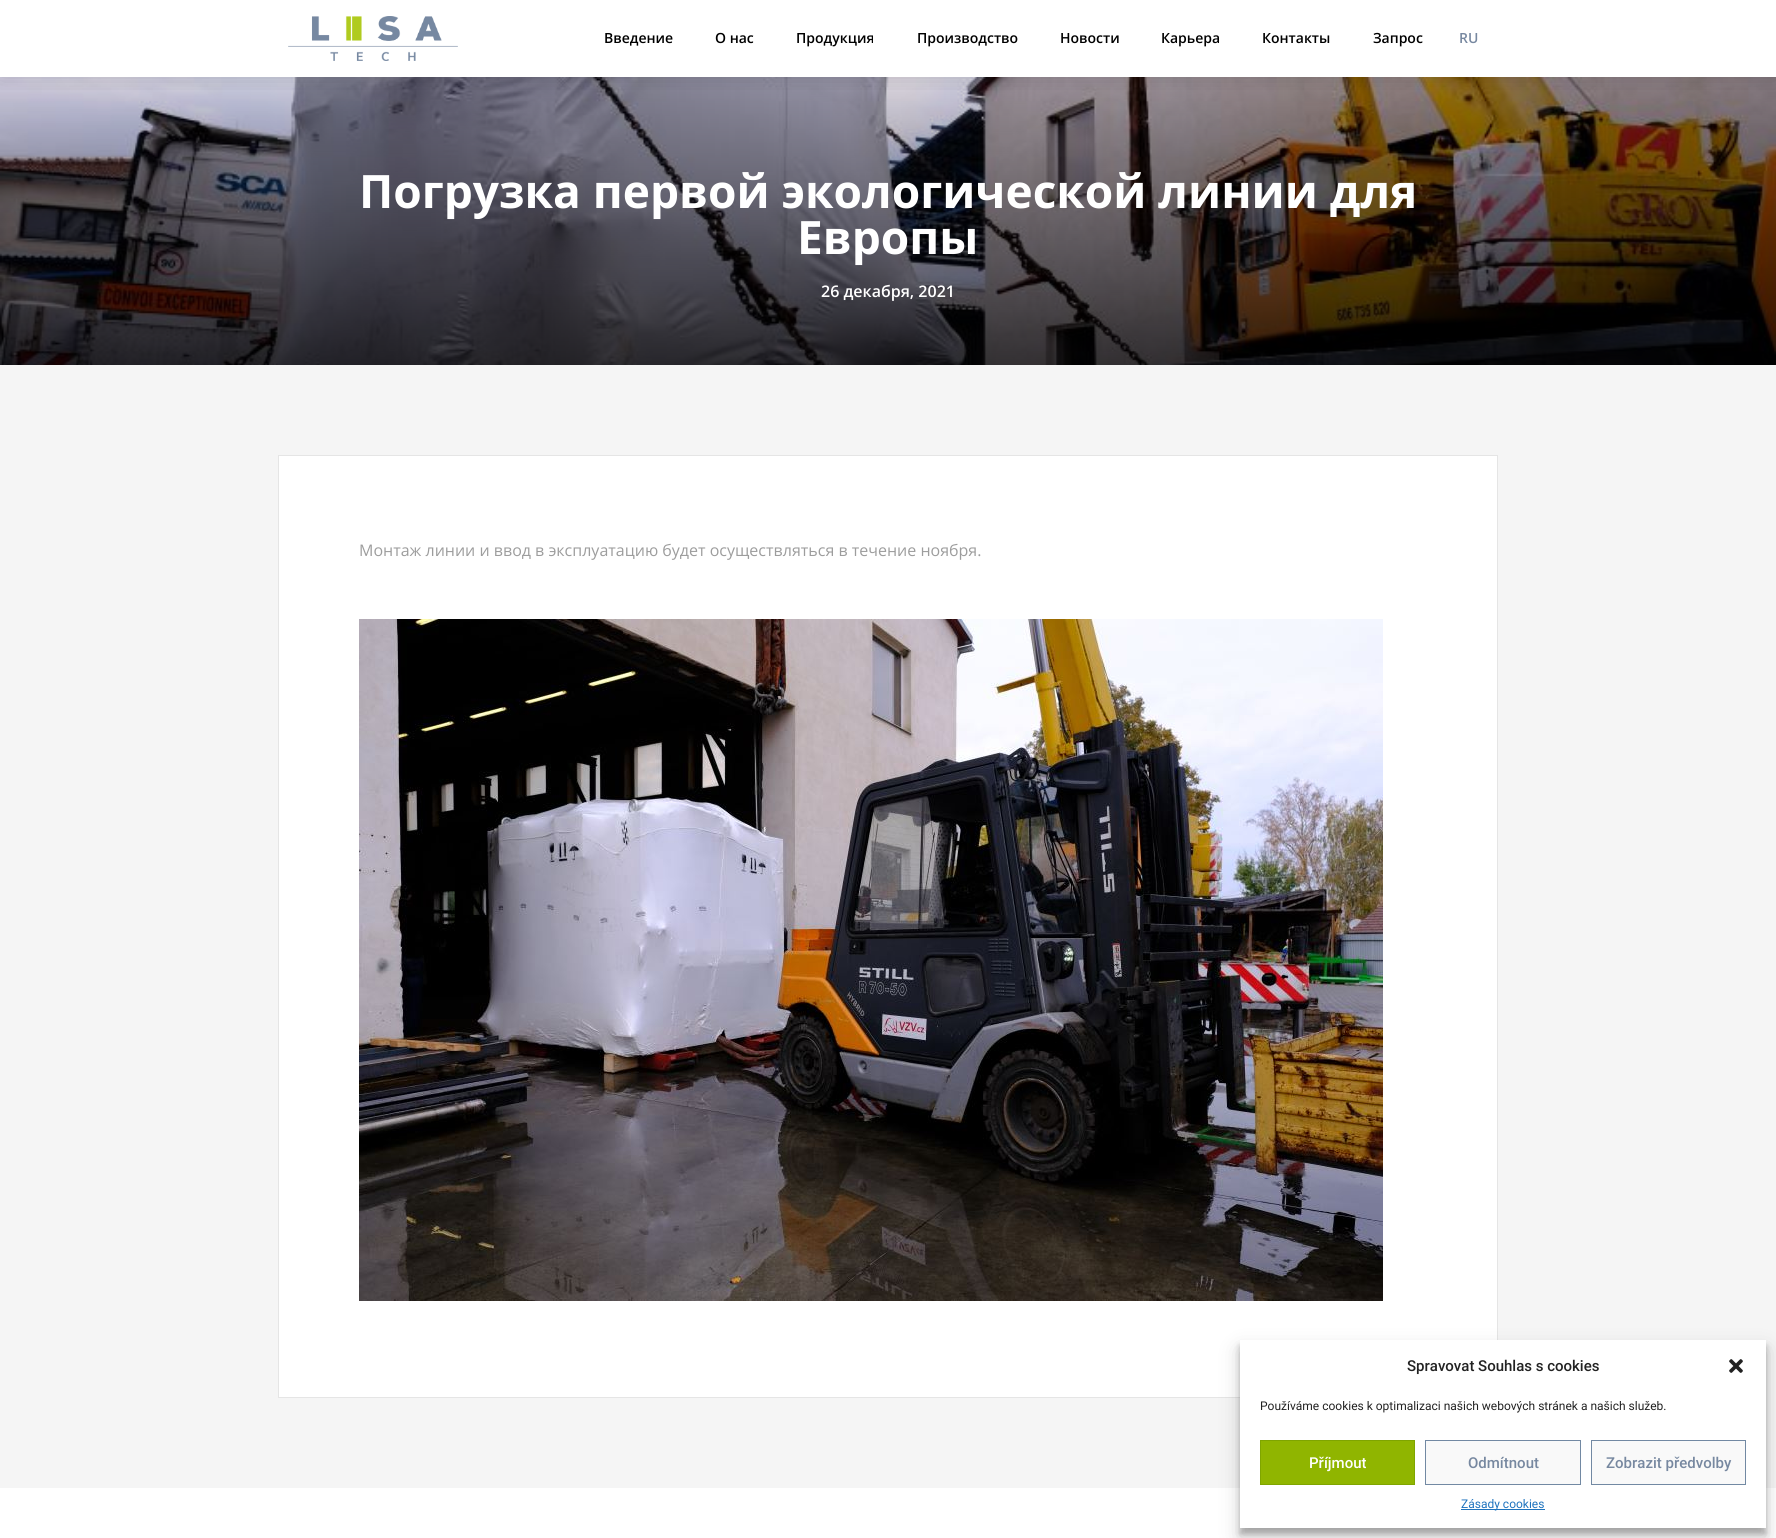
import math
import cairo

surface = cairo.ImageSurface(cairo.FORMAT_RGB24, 1776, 1538)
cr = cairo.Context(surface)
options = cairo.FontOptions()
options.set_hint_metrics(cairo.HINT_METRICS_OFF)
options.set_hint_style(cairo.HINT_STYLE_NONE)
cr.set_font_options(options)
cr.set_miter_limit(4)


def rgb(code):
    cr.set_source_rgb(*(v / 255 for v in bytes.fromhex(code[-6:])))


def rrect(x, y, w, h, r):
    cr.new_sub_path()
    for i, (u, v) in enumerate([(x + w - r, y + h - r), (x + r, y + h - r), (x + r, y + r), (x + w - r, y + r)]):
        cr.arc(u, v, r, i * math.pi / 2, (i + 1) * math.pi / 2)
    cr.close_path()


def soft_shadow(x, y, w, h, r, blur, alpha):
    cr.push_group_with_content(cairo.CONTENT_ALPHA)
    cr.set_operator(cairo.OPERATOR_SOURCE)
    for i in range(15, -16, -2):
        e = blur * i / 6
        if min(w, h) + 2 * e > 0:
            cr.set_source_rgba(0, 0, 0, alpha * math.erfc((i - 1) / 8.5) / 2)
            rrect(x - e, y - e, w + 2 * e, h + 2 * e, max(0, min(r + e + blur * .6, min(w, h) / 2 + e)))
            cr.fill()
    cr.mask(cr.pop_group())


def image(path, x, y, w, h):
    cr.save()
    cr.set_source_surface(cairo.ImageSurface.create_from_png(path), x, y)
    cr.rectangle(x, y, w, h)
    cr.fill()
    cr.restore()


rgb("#ffffff")
cr.paint()
image("img/2.png", 0, 77, 1776, 288)
cr.save()
cr.rectangle(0, 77, 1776, 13)
cr.clip()
rgb("#000000")
soft_shadow(0, 0, 1776, 77, 0, 12, 0.15)
cr.restore()
image("img/1.png", 288, 16, 170, 45)
rgb("#f5f5f5")
cr.rectangle(0, 365, 1776, 1123)
cr.fill()
rgb("#ffffff")
cr.rectangle(278.5, 455.5, 1219, 942)
cr.fill_preserve()
rgb("#e5e5e5")
cr.set_line_width(1)
cr.stroke()
image("img/3.png", 359, 619, 1024, 682)
rgb("#000000")
soft_shadow(1240, 1346, 526, 188, 0, 3, 0.23)
soft_shadow(1240, 1350, 526, 188, 0, 10, 0.19)
rgb("#ffffff")
cr.rectangle(1240, 1340, 526, 188)
cr.fill()
image("img/4.png", 1729, 1359, 14, 14)
rgb("#90b500")
cr.rectangle(1260.5, 1440.5, 154, 44)
cr.fill_preserve()
rgb("#7fa500")
cr.stroke()
rgb("#f9f9f9")
cr.rectangle(1425.5, 1440.5, 155, 44)
cr.fill_preserve()
rgb("#7289a3")
cr.stroke()
rgb("#f9f9f9")
cr.rectangle(1591.5, 1440.5, 154, 44)
cr.fill_preserve()
rgb("#7289a3")
cr.stroke()
rgb("#1e73be")
cr.rectangle(1461, 1509, 84, 1)
cr.fill()
cr.select_font_face("Open Sans SemiBold")
cr.set_font_size(14)
rgb("#000000")
for x, y, s in [
    (604, 43, "Введение"),
    (715, 43, "О нас"),
    (796, 43, "Продукция"),
    (917, 43, "Производство"),
    (1060, 43, "Новости"),
    (1161, 43, "Карьера"),
    (1262, 43, "Контакты"),
    (1373, 43, "Запрос"),
]:
    cr.move_to(x, y)
    cr.show_text(s)
rgb("#7788a0")
cr.move_to(1459, 43)
cr.show_text("RU")
cr.select_font_face("Open Sans", cairo.FONT_SLANT_NORMAL, cairo.FONT_WEIGHT_BOLD)
cr.set_font_size(46)
rgb("#ffffff")
cr.move_to(359, 208)
cr.show_text("Погрузка первой экологической линии для")
cr.move_to(797, 254)
cr.show_text("Европы")
cr.select_font_face("Open Sans SemiBold")
cr.set_font_size(16)
cr.move_to(821, 297)
cr.show_text("26 декабря, 2021")
cr.select_font_face("Open Sans")
rgb("#9d9d9d")
cr.move_to(359, 556)
cr.show_text("Монтаж линии и ввод в эксплуатацию будет осуществляться в течение ноября.")
cr.select_font_face("Roboto Medium")
cr.set_font_size(15)
rgb("#222222")
cr.move_to(1407, 1371)
cr.show_text("Spravovat Souhlas s cookies")
cr.select_font_face("Roboto")
cr.set_font_size(12)
cr.move_to(1260, 1410)
cr.show_text("Používáme cookies k optimalizaci našich webových stránek a našich služeb.")
cr.select_font_face("Roboto Medium")
cr.set_font_size(15)
rgb("#ffffff")
cr.move_to(1309, 1468)
cr.show_text("Příjmout")
rgb("#7788a0")
cr.move_to(1468, 1468)
cr.show_text("Odmítnout")
cr.move_to(1606, 1468)
cr.show_text("Zobrazit předvolby")
cr.select_font_face("Roboto")
cr.set_font_size(12)
rgb("#1e73be")
cr.move_to(1461, 1508)
cr.show_text("Zásady cookies")
surface.write_to_png("page.png")
